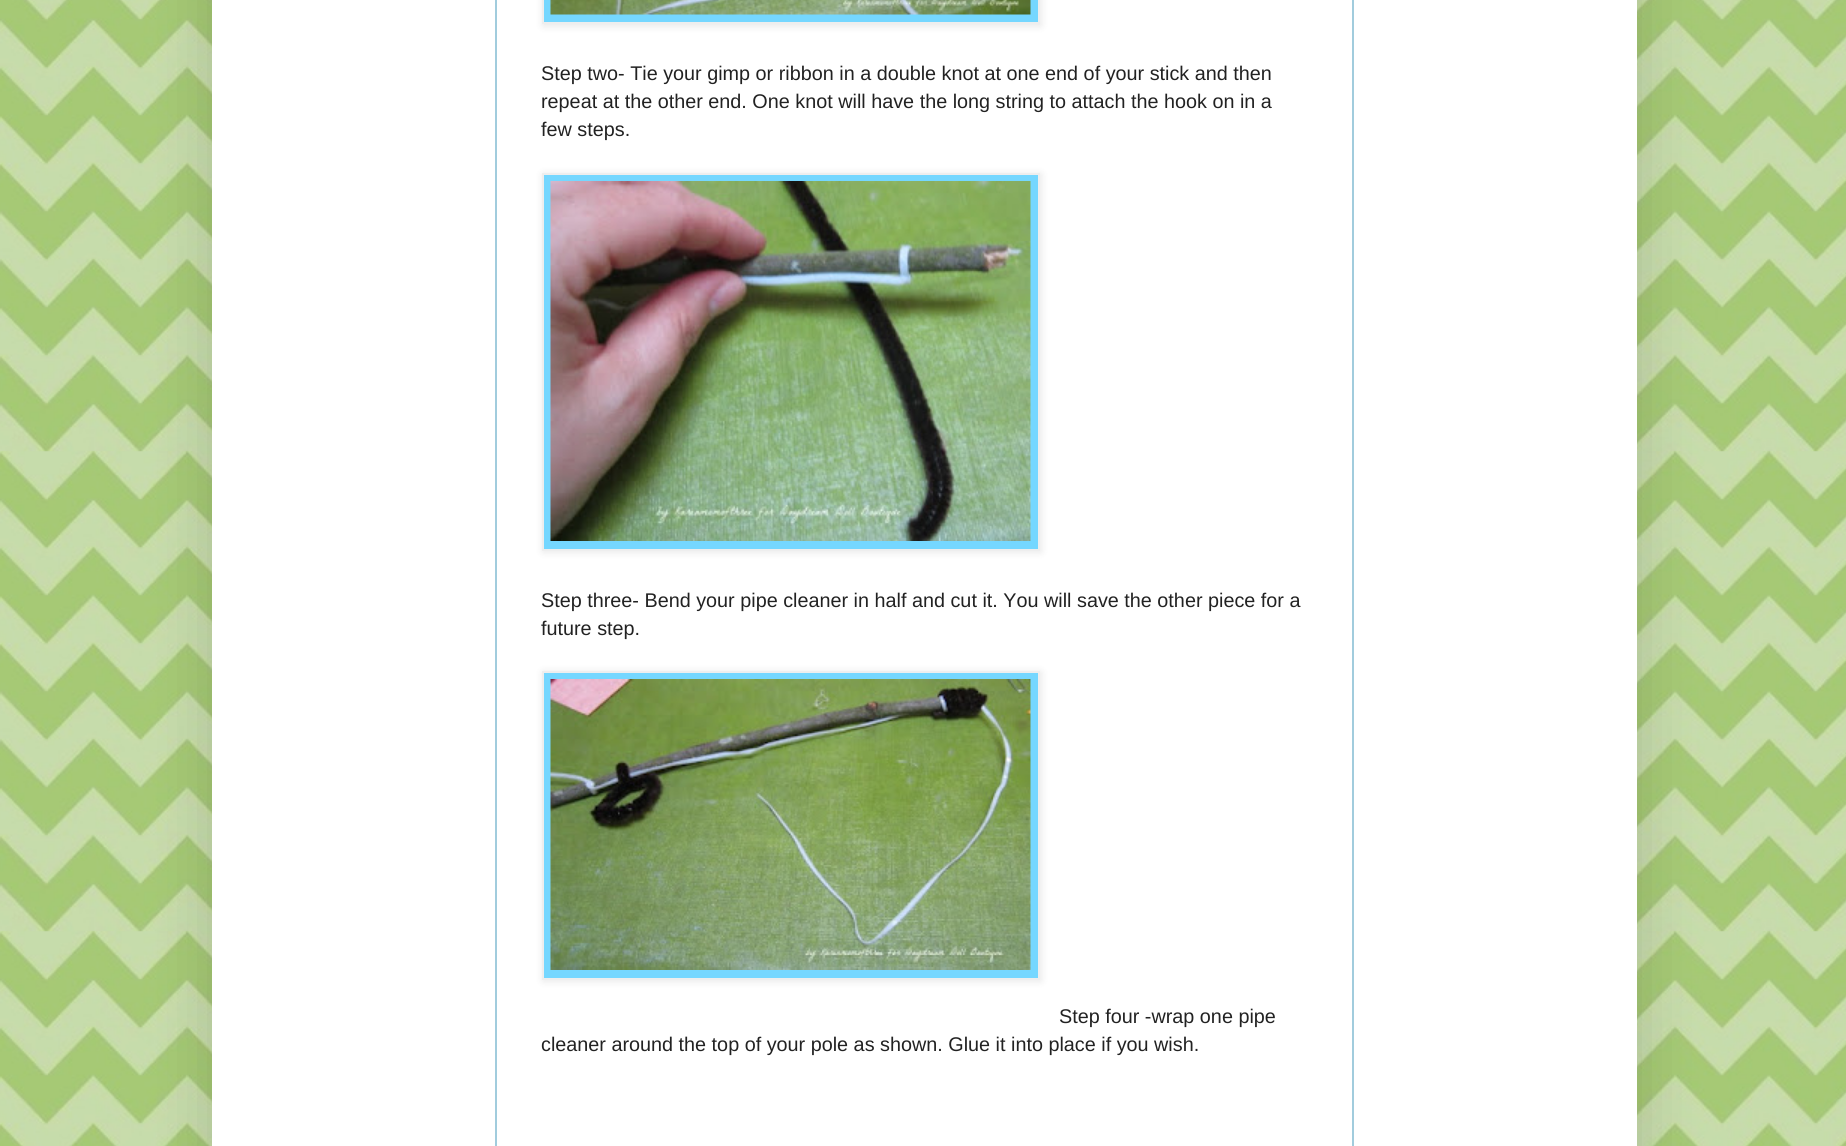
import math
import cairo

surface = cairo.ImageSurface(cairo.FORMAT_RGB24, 1846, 1146)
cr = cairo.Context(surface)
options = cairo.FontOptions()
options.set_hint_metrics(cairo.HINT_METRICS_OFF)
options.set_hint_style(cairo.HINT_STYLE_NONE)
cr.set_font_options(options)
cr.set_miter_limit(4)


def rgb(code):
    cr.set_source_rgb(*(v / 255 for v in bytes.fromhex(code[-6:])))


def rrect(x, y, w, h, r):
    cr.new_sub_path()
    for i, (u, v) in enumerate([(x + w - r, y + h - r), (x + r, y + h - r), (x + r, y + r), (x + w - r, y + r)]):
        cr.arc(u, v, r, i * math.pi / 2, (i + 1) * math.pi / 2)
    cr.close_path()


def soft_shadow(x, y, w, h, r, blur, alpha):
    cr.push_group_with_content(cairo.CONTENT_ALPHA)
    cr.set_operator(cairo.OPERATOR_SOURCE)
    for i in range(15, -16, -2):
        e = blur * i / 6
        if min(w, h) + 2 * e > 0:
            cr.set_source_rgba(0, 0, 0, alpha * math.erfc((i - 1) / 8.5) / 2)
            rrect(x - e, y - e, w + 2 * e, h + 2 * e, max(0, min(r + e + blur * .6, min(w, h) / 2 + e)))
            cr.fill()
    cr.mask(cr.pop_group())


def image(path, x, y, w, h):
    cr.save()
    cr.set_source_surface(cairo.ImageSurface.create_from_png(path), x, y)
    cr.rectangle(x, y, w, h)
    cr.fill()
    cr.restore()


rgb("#ffffff")
cr.paint()
image("img/1.png", 0, 0, 1846, 1146)
rgb("#000000")
soft_shadow(212, -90, 1425, 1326, 0, 30, 0.15)
rgb("#ffffff")
cr.rectangle(212, 0, 1425, 1146)
cr.fill()
rgb("#a1ccdd")
cr.rectangle(495, 0, 2, 1146)
cr.fill()
rgb("#000000")
soft_shadow(543, -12, 498, 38, 0, 4, 0.1)
rgb("#75d7ff")
cr.rectangle(543, -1, 496, 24)
cr.fill_preserve()
rgb("#eeeeee")
cr.stroke()
image("img/2.png", 550, 0, 481, 15)
rgb("#000000")
soft_shadow(543, 174, 498, 378, 0, 4, 0.1)
rgb("#75d7ff")
cr.rectangle(543, 174, 496, 376)
cr.fill_preserve()
rgb("#eeeeee")
cr.stroke()
image("img/3.png", 550, 181, 481, 360)
rgb("#000000")
soft_shadow(543, 672, 498, 309, 0, 4, 0.1)
rgb("#75d7ff")
cr.rectangle(543, 672, 496, 307)
cr.fill_preserve()
rgb("#eeeeee")
cr.stroke()
image("img/4.png", 550, 679, 481, 291)
rgb("#a1ccdd")
cr.rectangle(1352, 0, 2, 1146)
cr.fill()
cr.select_font_face("Liberation Sans")
cr.set_font_size(19.8)
rgb("#222222")
for x, y, s in [
    (541, 80, "Step two- Tie your gimp or ribbon in a double knot at one end of your stick and then"),
    (541, 108, "repeat at the other end. One knot will have the long string to attach the hook on in a"),
    (541, 136, "few steps."),
    (541, 607, "Step three- Bend your pipe cleaner in half and cut it. You will save the other piece for a"),
    (541, 635, "future step."),
    (1059, 1023, "Step four -wrap one pipe"),
    (541, 1051, "cleaner around the top of your pole as shown. Glue it into place if you wish."),
]:
    cr.move_to(x, y)
    cr.show_text(s)
surface.write_to_png("page.png")
